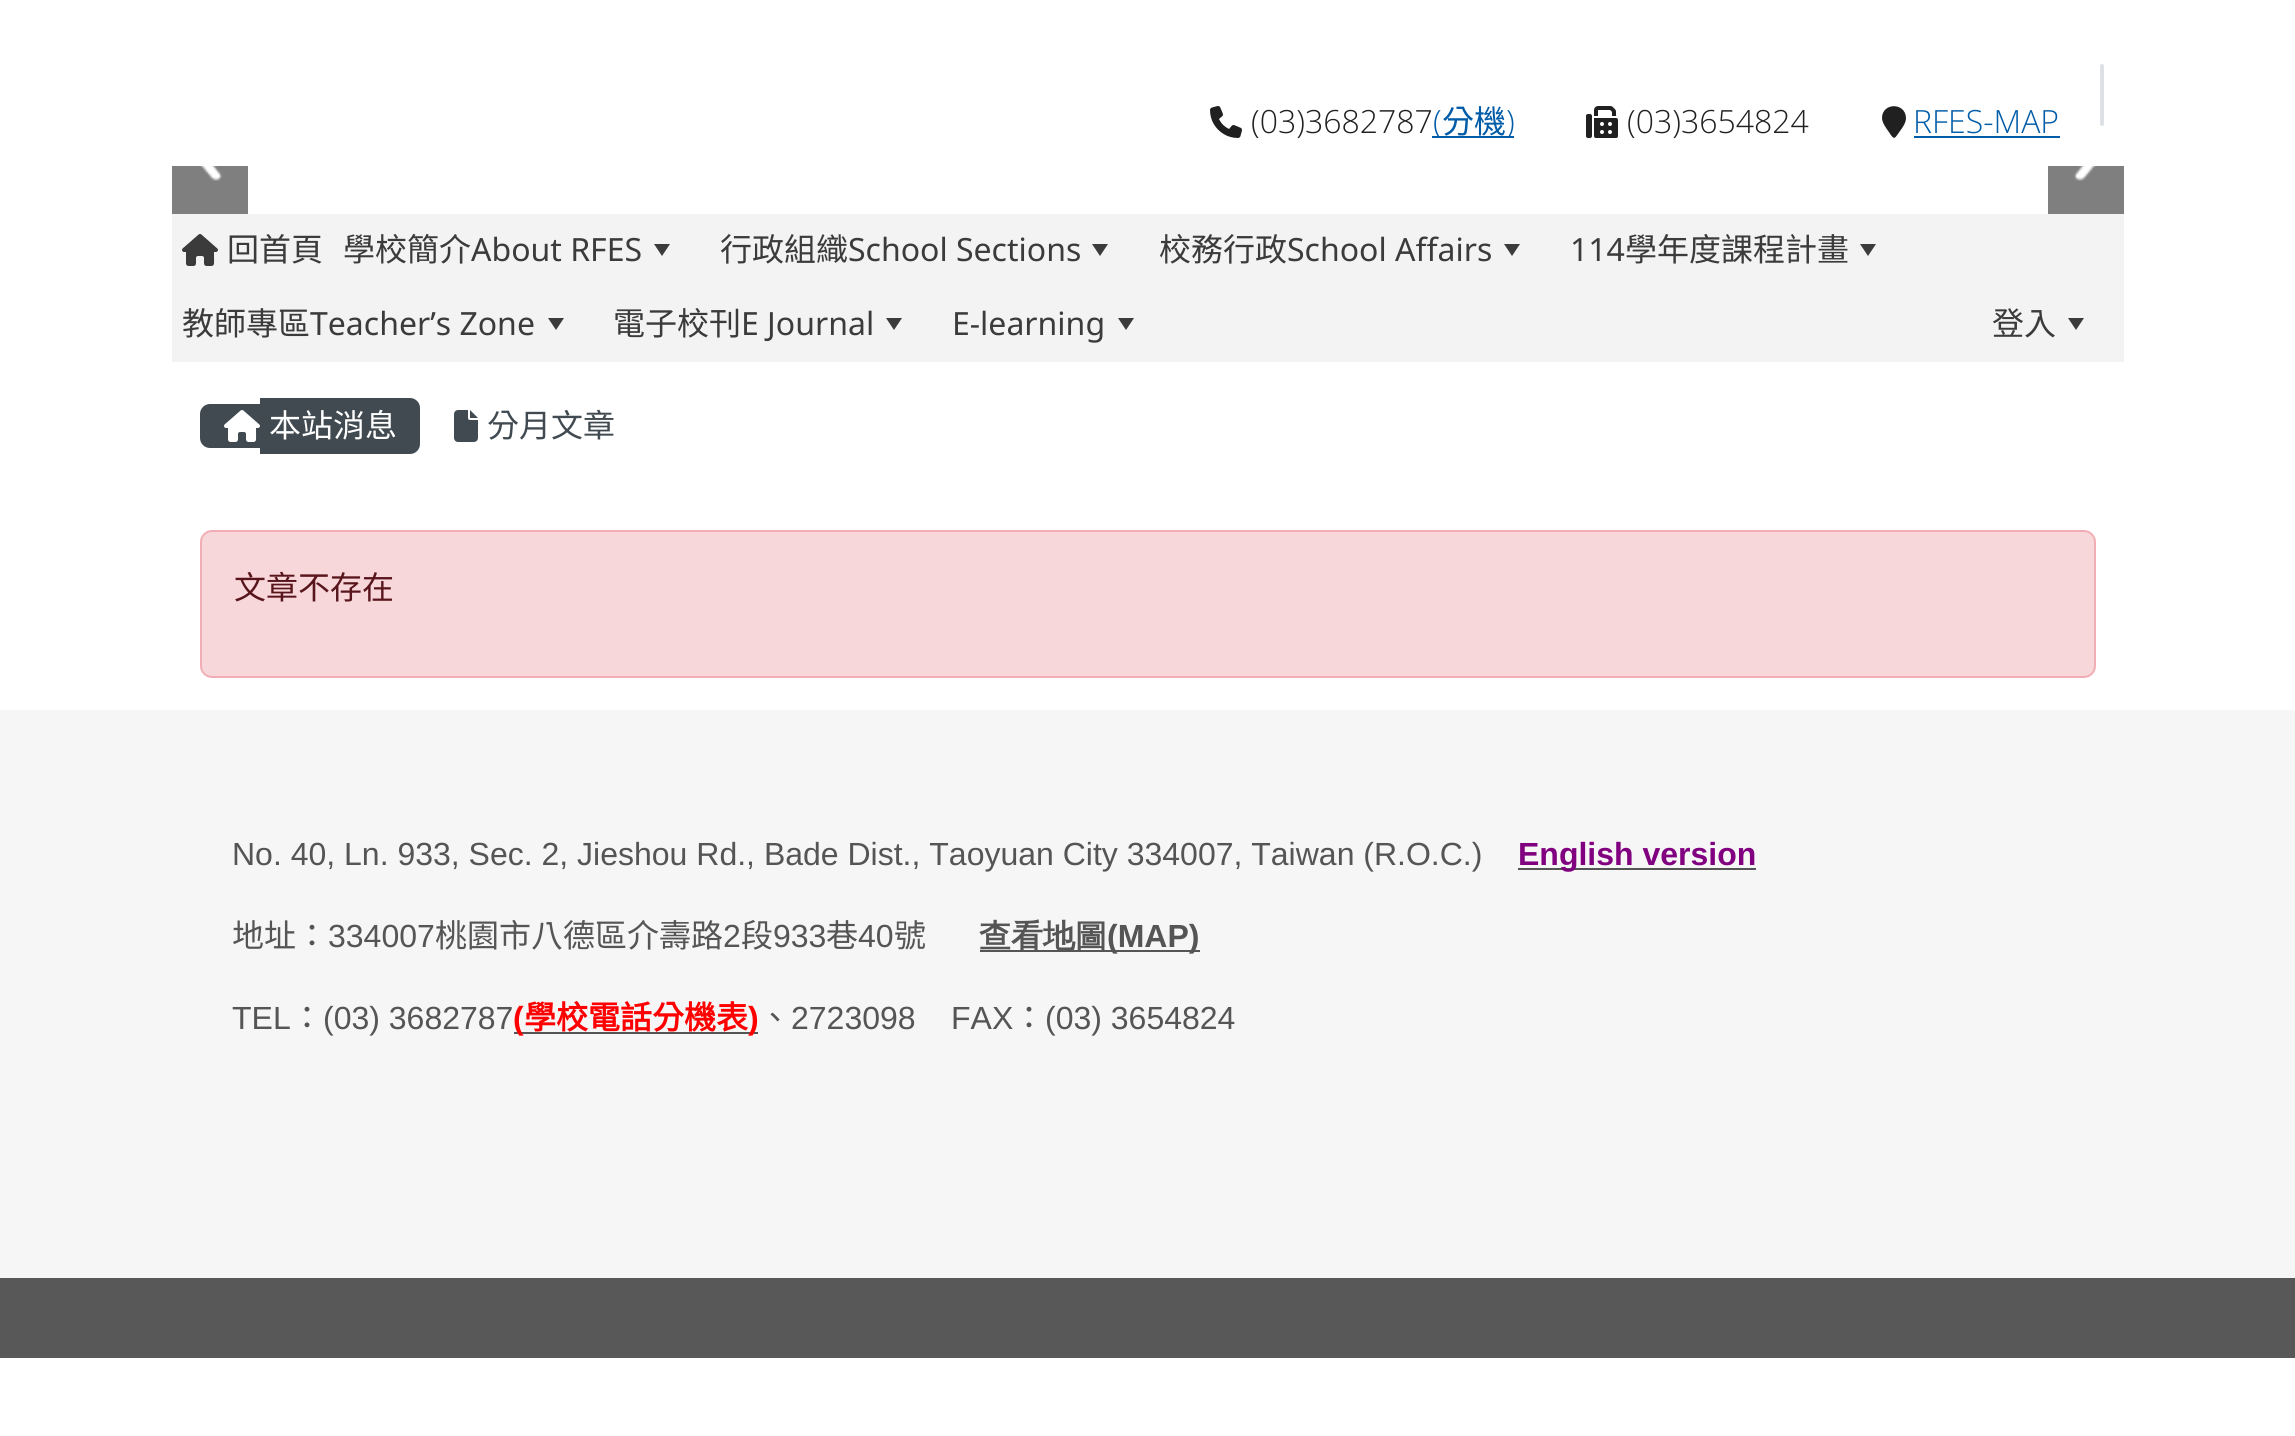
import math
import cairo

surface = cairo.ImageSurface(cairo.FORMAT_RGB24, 2295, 1436)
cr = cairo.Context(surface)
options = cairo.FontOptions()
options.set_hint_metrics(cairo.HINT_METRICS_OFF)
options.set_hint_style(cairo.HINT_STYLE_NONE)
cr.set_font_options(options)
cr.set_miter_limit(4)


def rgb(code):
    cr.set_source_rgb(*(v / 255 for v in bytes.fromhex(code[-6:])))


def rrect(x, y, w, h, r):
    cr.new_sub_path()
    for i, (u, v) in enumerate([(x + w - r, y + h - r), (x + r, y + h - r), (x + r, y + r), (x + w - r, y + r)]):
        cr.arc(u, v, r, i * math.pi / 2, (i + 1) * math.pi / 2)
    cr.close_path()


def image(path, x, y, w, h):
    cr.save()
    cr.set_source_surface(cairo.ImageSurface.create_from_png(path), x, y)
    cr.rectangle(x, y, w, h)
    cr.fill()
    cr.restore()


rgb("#ffffff")
cr.paint()
image("img/1.png", 1210, 106, 32, 32)
rgb("#005ca8")
cr.rectangle(1432, 136, 82, 2)
cr.fill()
image("img/2.png", 1586, 106, 32, 32)
rgb("#202020")
cr.new_path()
cr.move_to(1906, 118)
cr.curve_to(1906, 122.5, 1903, 127, 1900, 131)
cr.curve_to(1894, 139.5, 1894.5, 140.5, 1888.5, 131.5)
cr.curve_to(1886, 128, 1882, 122.5, 1882, 118)
cr.curve_to(1882, 102.5, 1905.5, 102, 1906, 118)
cr.close_path()
cr.fill()
rgb("#005ca8")
cr.rectangle(1914, 136, 146, 2)
cr.fill()
rgb("#dee2e6")
rrect(2100, 64, 4, 62, 2)
cr.fill()
image("img/3.png", 172, 166, 76, 48)
image("img/4.png", 2048, 166, 76, 48)
rgb("#f3f3f3")
cr.rectangle(172, 214, 1952, 148)
cr.fill()
image("img/5.png", 182, 234, 36, 32)
rgb("#3b3b3b")
cr.new_path()
cr.move_to(654, 244)
cr.line_to(670, 244)
cr.line_to(662, 256)
cr.close_path()
cr.fill()
cr.new_path()
cr.move_to(1092, 244)
cr.line_to(1108, 244)
cr.line_to(1100, 256)
cr.close_path()
cr.fill()
cr.new_path()
cr.move_to(1504, 244)
cr.line_to(1520, 244)
cr.line_to(1512, 256)
cr.close_path()
cr.fill()
cr.new_path()
cr.move_to(1860, 244)
cr.line_to(1876, 244)
cr.line_to(1868, 256)
cr.close_path()
cr.fill()
cr.new_path()
cr.move_to(548, 318)
cr.line_to(564, 318)
cr.line_to(556, 330)
cr.close_path()
cr.fill()
cr.new_path()
cr.move_to(886, 318)
cr.line_to(902, 318)
cr.line_to(894, 330)
cr.close_path()
cr.fill()
cr.new_path()
cr.move_to(1118, 318)
cr.line_to(1134, 318)
cr.line_to(1126, 330)
cr.close_path()
cr.fill()
cr.new_path()
cr.move_to(2068, 318)
cr.line_to(2084, 318)
cr.line_to(2076, 330)
cr.close_path()
cr.fill()
rgb("#404a50")
cr.new_path()
cr.move_to(210, 404)
cr.line_to(260, 404)
cr.line_to(260, 448)
cr.line_to(210, 448)
cr.curve_to(204.5, 448, 200, 443.5, 200, 438)
cr.line_to(200, 414)
cr.curve_to(200, 408.5, 204.5, 404, 210, 404)
cr.close_path()
cr.fill()
cr.new_path()
cr.move_to(260, 398)
cr.line_to(410, 398)
cr.curve_to(415.5, 398, 420, 402.5, 420, 408)
cr.line_to(420, 444)
cr.curve_to(420, 449.5, 415.5, 454, 410, 454)
cr.line_to(260, 454)
cr.close_path()
cr.fill()
image("img/6.png", 224, 410, 36, 32)
image("img/7.png", 454, 410, 24, 32)
rgb("#f8d7da")
rrect(201, 531, 1894, 146, 11)
cr.fill_preserve()
rgb("#f1aeb5")
cr.stroke()
for x, y, w, h, color in [
    (0, 710, 2295, 568, "#f6f6f6"),
    (1518, 868, 238, 2, "#555555"),
    (980, 950, 220, 2, "#555555"),
    (514, 1032, 244, 2, "#555555"),
    (0, 1278, 2295, 80, "#585858"),
]:
    rgb(color)
    cr.rectangle(x, y, w, h)
    cr.fill()
cr.select_font_face("Open Sans Light")
cr.set_font_size(32)
rgb("#202020")
cr.move_to(1251, 133)
cr.show_text("(03)3682787")
rgb("#005ca8")
cr.move_to(1433, 133)
cr.show_text("(")
cr.select_font_face("Noto Sans CJK TC")
cr.move_to(1442, 133)
cr.show_text("分機")
cr.select_font_face("Open Sans Light")
cr.move_to(1506, 133)
cr.show_text(")")
rgb("#202020")
cr.move_to(1627, 133)
cr.show_text("(03)3654824")
rgb("#005ca8")
cr.move_to(1913, 133)
cr.show_text("RFES-MAP")
cr.select_font_face("Noto Sans CJK TC")
rgb("#3b3b3b")
cr.move_to(227, 261)
cr.show_text("回首頁")
cr.move_to(343, 261)
cr.show_text("學校簡介")
cr.select_font_face("Noto Sans")
cr.move_to(471, 261)
cr.show_text("About RFES")
cr.select_font_face("Noto Sans CJK TC")
cr.move_to(720, 261)
cr.show_text("行政組織")
cr.select_font_face("Noto Sans")
cr.move_to(848, 261)
cr.show_text("School Sections")
cr.select_font_face("Noto Sans CJK TC")
cr.move_to(1159, 261)
cr.show_text("校務行政")
cr.select_font_face("Noto Sans")
cr.move_to(1287, 261)
cr.show_text("School Affairs")
cr.move_to(1570, 261)
cr.show_text("114")
cr.select_font_face("Noto Sans CJK TC")
cr.move_to(1625, 261)
cr.show_text("學年度課程計畫")
cr.move_to(182, 335)
cr.show_text("教師專區")
cr.select_font_face("Noto Sans")
cr.move_to(310, 335)
cr.show_text("Teacher’s Zone")
cr.select_font_face("Noto Sans CJK TC")
cr.move_to(613, 335)
cr.show_text("電子校刊")
cr.select_font_face("Noto Sans")
cr.move_to(741, 335)
cr.show_text("E Journal")
cr.move_to(952, 335)
cr.show_text("E-learning")
cr.select_font_face("Noto Sans CJK TC")
cr.move_to(1992, 335)
cr.show_text("登入")
rgb("#ffffff")
cr.move_to(269, 437)
cr.show_text("本站消息")
rgb("#404a50")
cr.move_to(487, 437)
cr.show_text("分月文章")
rgb("#58151c")
cr.move_to(234, 599)
cr.show_text("文章不存在")
cr.select_font_face("Liberation Sans")
rgb("#555555")
cr.move_to(232, 865)
cr.show_text("No. 40, Ln. 933, Sec. 2, Jieshou Rd., Bade Dist., Taoyuan City 334007, Taiwan (R.O.C.)")
cr.select_font_face("Liberation Sans", cairo.FONT_SLANT_NORMAL, cairo.FONT_WEIGHT_BOLD)
rgb("#800080")
cr.move_to(1518, 865)
cr.show_text("English version")
cr.select_font_face("Noto Sans CJK TC")
rgb("#555555")
cr.move_to(232, 947)
cr.show_text("地址：")
cr.select_font_face("Liberation Sans")
cr.move_to(328, 947)
cr.show_text("334007")
cr.select_font_face("Noto Sans CJK TC")
cr.move_to(435, 947)
cr.show_text("桃園市八德區介壽路")
cr.select_font_face("Liberation Sans")
cr.move_to(723, 947)
cr.show_text("2")
cr.select_font_face("Noto Sans CJK TC")
cr.move_to(741, 947)
cr.show_text("段")
cr.select_font_face("Liberation Sans")
cr.move_to(773, 947)
cr.show_text("933")
cr.select_font_face("Noto Sans CJK TC")
cr.move_to(826, 947)
cr.show_text("巷")
cr.select_font_face("Liberation Sans")
cr.move_to(858, 947)
cr.show_text("40")
cr.select_font_face("Noto Sans CJK TC")
cr.move_to(894, 947)
cr.show_text("號")
cr.select_font_face("WenQuanYi Zen Hei", cairo.FONT_SLANT_NORMAL, cairo.FONT_WEIGHT_BOLD)
cr.move_to(979, 947)
cr.show_text("查看地圖")
cr.select_font_face("Liberation Sans", cairo.FONT_SLANT_NORMAL, cairo.FONT_WEIGHT_BOLD)
cr.move_to(1107, 947)
cr.show_text("(MAP)")
cr.select_font_face("Liberation Sans")
cr.move_to(232, 1029)
cr.show_text("TEL")
cr.select_font_face("Noto Sans CJK TC")
cr.move_to(291, 1029)
cr.show_text("：")
cr.select_font_face("Liberation Sans")
cr.move_to(323, 1029)
cr.show_text("(03) 3682787")
cr.select_font_face("Liberation Sans", cairo.FONT_SLANT_NORMAL, cairo.FONT_WEIGHT_BOLD)
rgb("#ff0000")
cr.move_to(513, 1029)
cr.show_text("(")
cr.select_font_face("Noto Sans CJK TC", cairo.FONT_SLANT_NORMAL, cairo.FONT_WEIGHT_BOLD)
cr.move_to(524, 1029)
cr.show_text("學校電話分機表")
cr.select_font_face("Liberation Sans", cairo.FONT_SLANT_NORMAL, cairo.FONT_WEIGHT_BOLD)
cr.move_to(748, 1029)
cr.show_text(")")
cr.select_font_face("Noto Sans CJK TC")
rgb("#555555")
cr.move_to(759, 1029)
cr.show_text("、")
cr.select_font_face("Liberation Sans")
cr.move_to(791, 1029)
cr.show_text("2723098")
cr.move_to(951, 1029)
cr.show_text("FAX")
cr.select_font_face("Noto Sans CJK TC")
cr.move_to(1013, 1029)
cr.show_text("：")
cr.select_font_face("Liberation Sans")
cr.move_to(1045, 1029)
cr.show_text("(03) 3654824")
surface.write_to_png("page.png")
